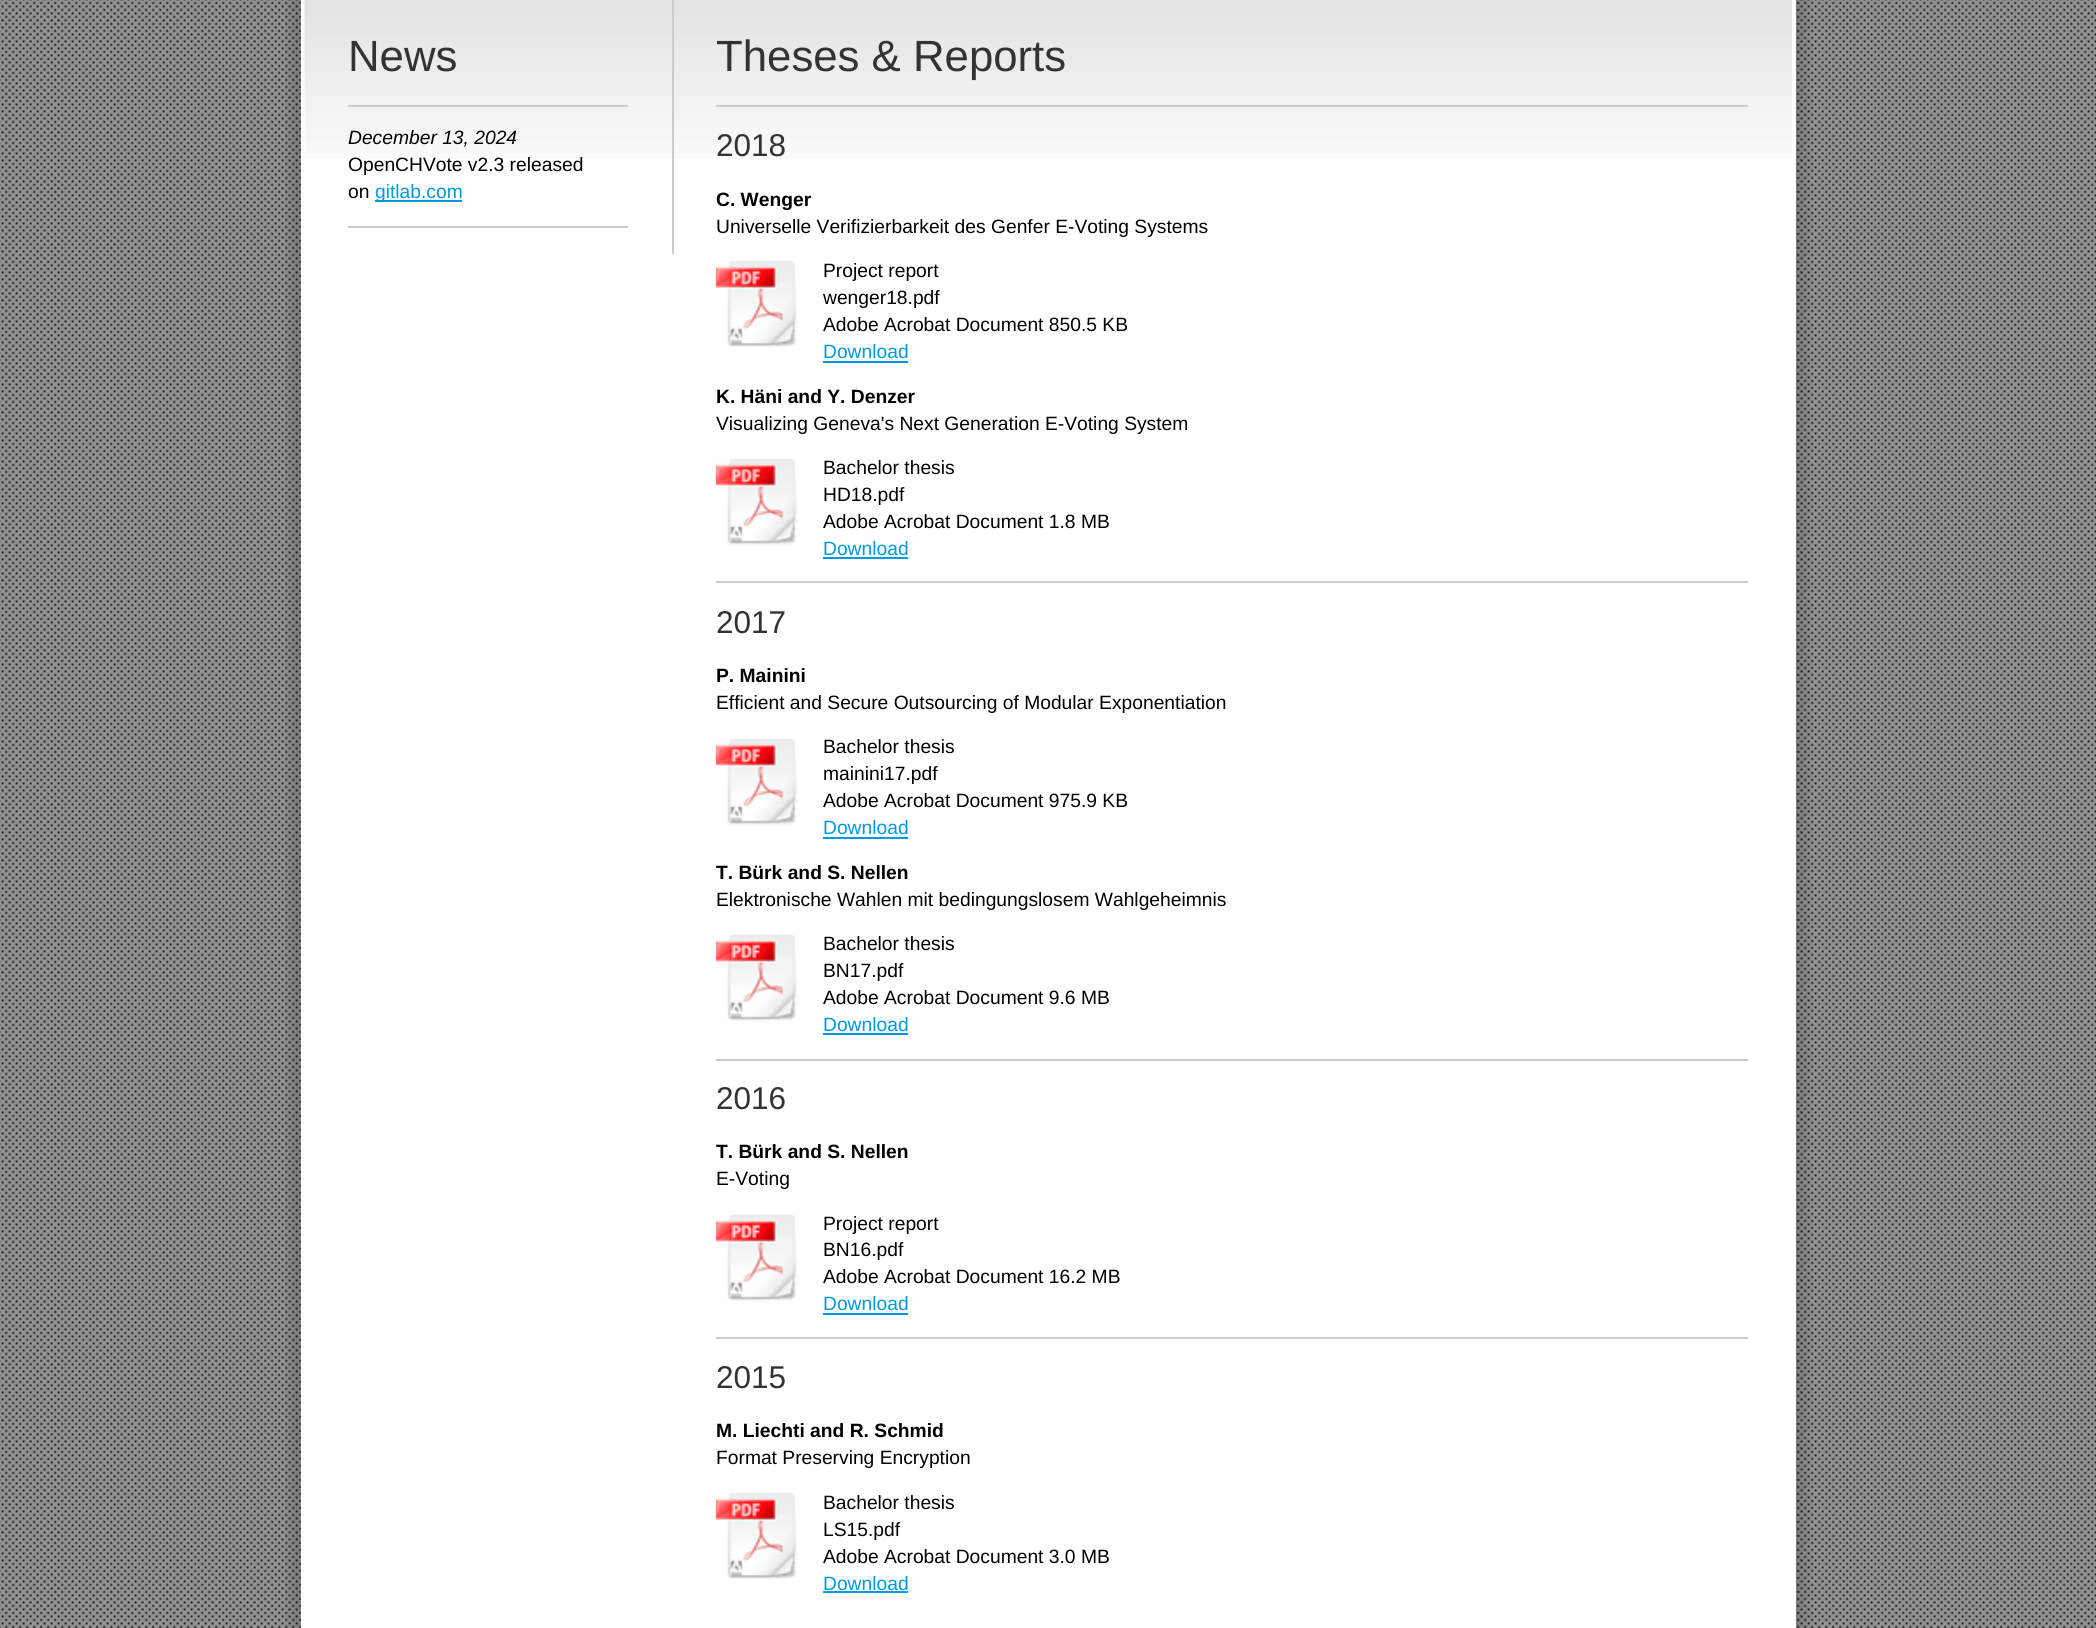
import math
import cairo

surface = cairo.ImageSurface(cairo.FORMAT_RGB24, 2096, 1628)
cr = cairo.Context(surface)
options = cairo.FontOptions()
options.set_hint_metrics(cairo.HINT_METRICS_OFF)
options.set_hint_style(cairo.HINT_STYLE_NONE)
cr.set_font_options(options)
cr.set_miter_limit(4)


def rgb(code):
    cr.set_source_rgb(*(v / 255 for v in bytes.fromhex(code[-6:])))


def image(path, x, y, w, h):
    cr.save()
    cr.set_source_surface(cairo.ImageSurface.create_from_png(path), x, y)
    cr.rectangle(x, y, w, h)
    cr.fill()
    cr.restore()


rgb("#919191")
cr.paint()
image("img/1.png", 0, 0, 2096, 1628)
image("img/2.png", 285, 0, 1527, 1628)
cr.rectangle(303, -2, 1491, 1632)
rgb("#ffffff")
cr.set_line_width(4)
cr.stroke()
cr.rectangle(305, 159, 1487, 1469)
cr.fill()
image("img/3.png", 304, 0, 1488, 159)
for x, y, w, h, color in [
    (672, 0, 2, 254, "#cccccc"),
    (348, 105, 280, 2, "#cccccc"),
    (375, 200, 87, 2, "#0099e1"),
    (348, 226, 280, 2, "#cccccc"),
    (716, 105, 1032, 2, "#cccccc"),
]:
    rgb(color)
    cr.rectangle(x, y, w, h)
    cr.fill()
image("img/4.png", 715, 260, 82, 87)
rgb("#0099e1")
cr.rectangle(823, 361, 85, 2)
cr.fill()
image("img/5.png", 715, 458, 82, 87)
cr.rectangle(823, 557, 85, 2)
cr.fill()
rgb("#cccccc")
cr.rectangle(716, 581, 1032, 2)
cr.fill()
image("img/5.png", 715, 738, 82, 87)
rgb("#0099e1")
cr.rectangle(823, 837, 85, 2)
cr.fill()
image("img/5.png", 715, 934, 82, 87)
cr.rectangle(823, 1033, 85, 2)
cr.fill()
rgb("#cccccc")
cr.rectangle(716, 1059, 1032, 2)
cr.fill()
image("img/5.png", 715, 1214, 82, 87)
rgb("#0099e1")
cr.rectangle(823, 1313, 85, 2)
cr.fill()
rgb("#cccccc")
cr.rectangle(716, 1337, 1032, 2)
cr.fill()
image("img/4.png", 715, 1492, 82, 87)
rgb("#0099e1")
cr.rectangle(823, 1591, 85, 2)
cr.fill()
cr.select_font_face("Liberation Sans")
cr.set_font_size(43.75)
rgb("#333333")
cr.move_to(348, 71)
cr.show_text("News")
cr.select_font_face("Liberation Sans", cairo.FONT_SLANT_ITALIC)
cr.set_font_size(19.25)
rgb("#000000")
cr.move_to(348, 144)
cr.show_text("December 13, 2024")
cr.select_font_face("Liberation Sans")
cr.move_to(348, 171)
cr.show_text("OpenCHVote v2.3 released")
cr.move_to(348, 198)
cr.show_text("on")
rgb("#0099e1")
cr.move_to(375, 198)
cr.show_text("gitlab.com")
cr.set_font_size(43.75)
rgb("#333333")
cr.move_to(716, 71)
cr.show_text("Theses & Reports")
cr.set_font_size(31.5)
cr.move_to(716, 156)
cr.show_text("2018")
cr.select_font_face("Liberation Sans", cairo.FONT_SLANT_NORMAL, cairo.FONT_WEIGHT_BOLD)
cr.set_font_size(19.25)
rgb("#000000")
cr.move_to(716, 206)
cr.show_text("C. Wenger")
cr.select_font_face("Liberation Sans")
for x, y, s in [
    (716, 233, "Universelle Verifizierbarkeit des Genfer E-Voting Systems"),
    (823, 277, "Project report"),
    (823, 304, "wenger18.pdf"),
    (823, 331, "Adobe Acrobat Document 850.5 KB"),
]:
    cr.move_to(x, y)
    cr.show_text(s)
rgb("#0099e1")
cr.move_to(823, 358)
cr.show_text("Download")
cr.select_font_face("Liberation Sans", cairo.FONT_SLANT_NORMAL, cairo.FONT_WEIGHT_BOLD)
rgb("#000000")
cr.move_to(716, 403)
cr.show_text("K. Häni and Y. Denzer")
cr.select_font_face("Liberation Sans")
for x, y, s in [
    (716, 430, "Visualizing Geneva's Next Generation E-Voting System"),
    (823, 474, "Bachelor thesis"),
    (823, 501, "HD18.pdf"),
    (823, 528, "Adobe Acrobat Document 1.8 MB"),
]:
    cr.move_to(x, y)
    cr.show_text(s)
rgb("#0099e1")
cr.move_to(823, 555)
cr.show_text("Download")
cr.set_font_size(31.5)
rgb("#333333")
cr.move_to(716, 633)
cr.show_text("2017")
cr.select_font_face("Liberation Sans", cairo.FONT_SLANT_NORMAL, cairo.FONT_WEIGHT_BOLD)
cr.set_font_size(19.25)
rgb("#000000")
cr.move_to(716, 682)
cr.show_text("P. Mainini")
cr.select_font_face("Liberation Sans")
for x, y, s in [
    (716, 709, "Efficient and Secure Outsourcing of Modular Exponentiation"),
    (823, 753, "Bachelor thesis"),
    (823, 780, "mainini17.pdf"),
    (823, 807, "Adobe Acrobat Document 975.9 KB"),
]:
    cr.move_to(x, y)
    cr.show_text(s)
rgb("#0099e1")
cr.move_to(823, 834)
cr.show_text("Download")
cr.select_font_face("Liberation Sans", cairo.FONT_SLANT_NORMAL, cairo.FONT_WEIGHT_BOLD)
rgb("#000000")
cr.move_to(716, 879)
cr.show_text("T. Bürk and S. Nellen")
cr.select_font_face("Liberation Sans")
for x, y, s in [
    (716, 906, "Elektronische Wahlen mit bedingungslosem Wahlgeheimnis"),
    (823, 950, "Bachelor thesis"),
    (823, 977, "BN17.pdf"),
    (823, 1004, "Adobe Acrobat Document 9.6 MB"),
]:
    cr.move_to(x, y)
    cr.show_text(s)
rgb("#0099e1")
cr.move_to(823, 1031)
cr.show_text("Download")
cr.set_font_size(31.5)
rgb("#333333")
cr.move_to(716, 1109)
cr.show_text("2016")
cr.select_font_face("Liberation Sans", cairo.FONT_SLANT_NORMAL, cairo.FONT_WEIGHT_BOLD)
cr.set_font_size(19.25)
rgb("#000000")
cr.move_to(716, 1158)
cr.show_text("T. Bürk and S. Nellen")
cr.select_font_face("Liberation Sans")
for x, y, s in [
    (716, 1185, "E-Voting"),
    (823, 1230, "Project report"),
    (823, 1256, "BN16.pdf"),
    (823, 1283, "Adobe Acrobat Document 16.2 MB"),
]:
    cr.move_to(x, y)
    cr.show_text(s)
rgb("#0099e1")
cr.move_to(823, 1310)
cr.show_text("Download")
cr.set_font_size(31.5)
rgb("#333333")
cr.move_to(716, 1388)
cr.show_text("2015")
cr.select_font_face("Liberation Sans", cairo.FONT_SLANT_NORMAL, cairo.FONT_WEIGHT_BOLD)
cr.set_font_size(19.25)
rgb("#000000")
cr.move_to(716, 1437)
cr.show_text("M. Liechti and R. Schmid")
cr.select_font_face("Liberation Sans")
for x, y, s in [
    (716, 1464, "Format Preserving Encryption"),
    (823, 1509, "Bachelor thesis"),
    (823, 1536, "LS15.pdf"),
    (823, 1563, "Adobe Acrobat Document 3.0 MB"),
]:
    cr.move_to(x, y)
    cr.show_text(s)
rgb("#0099e1")
cr.move_to(823, 1590)
cr.show_text("Download")
surface.write_to_png("page.png")
